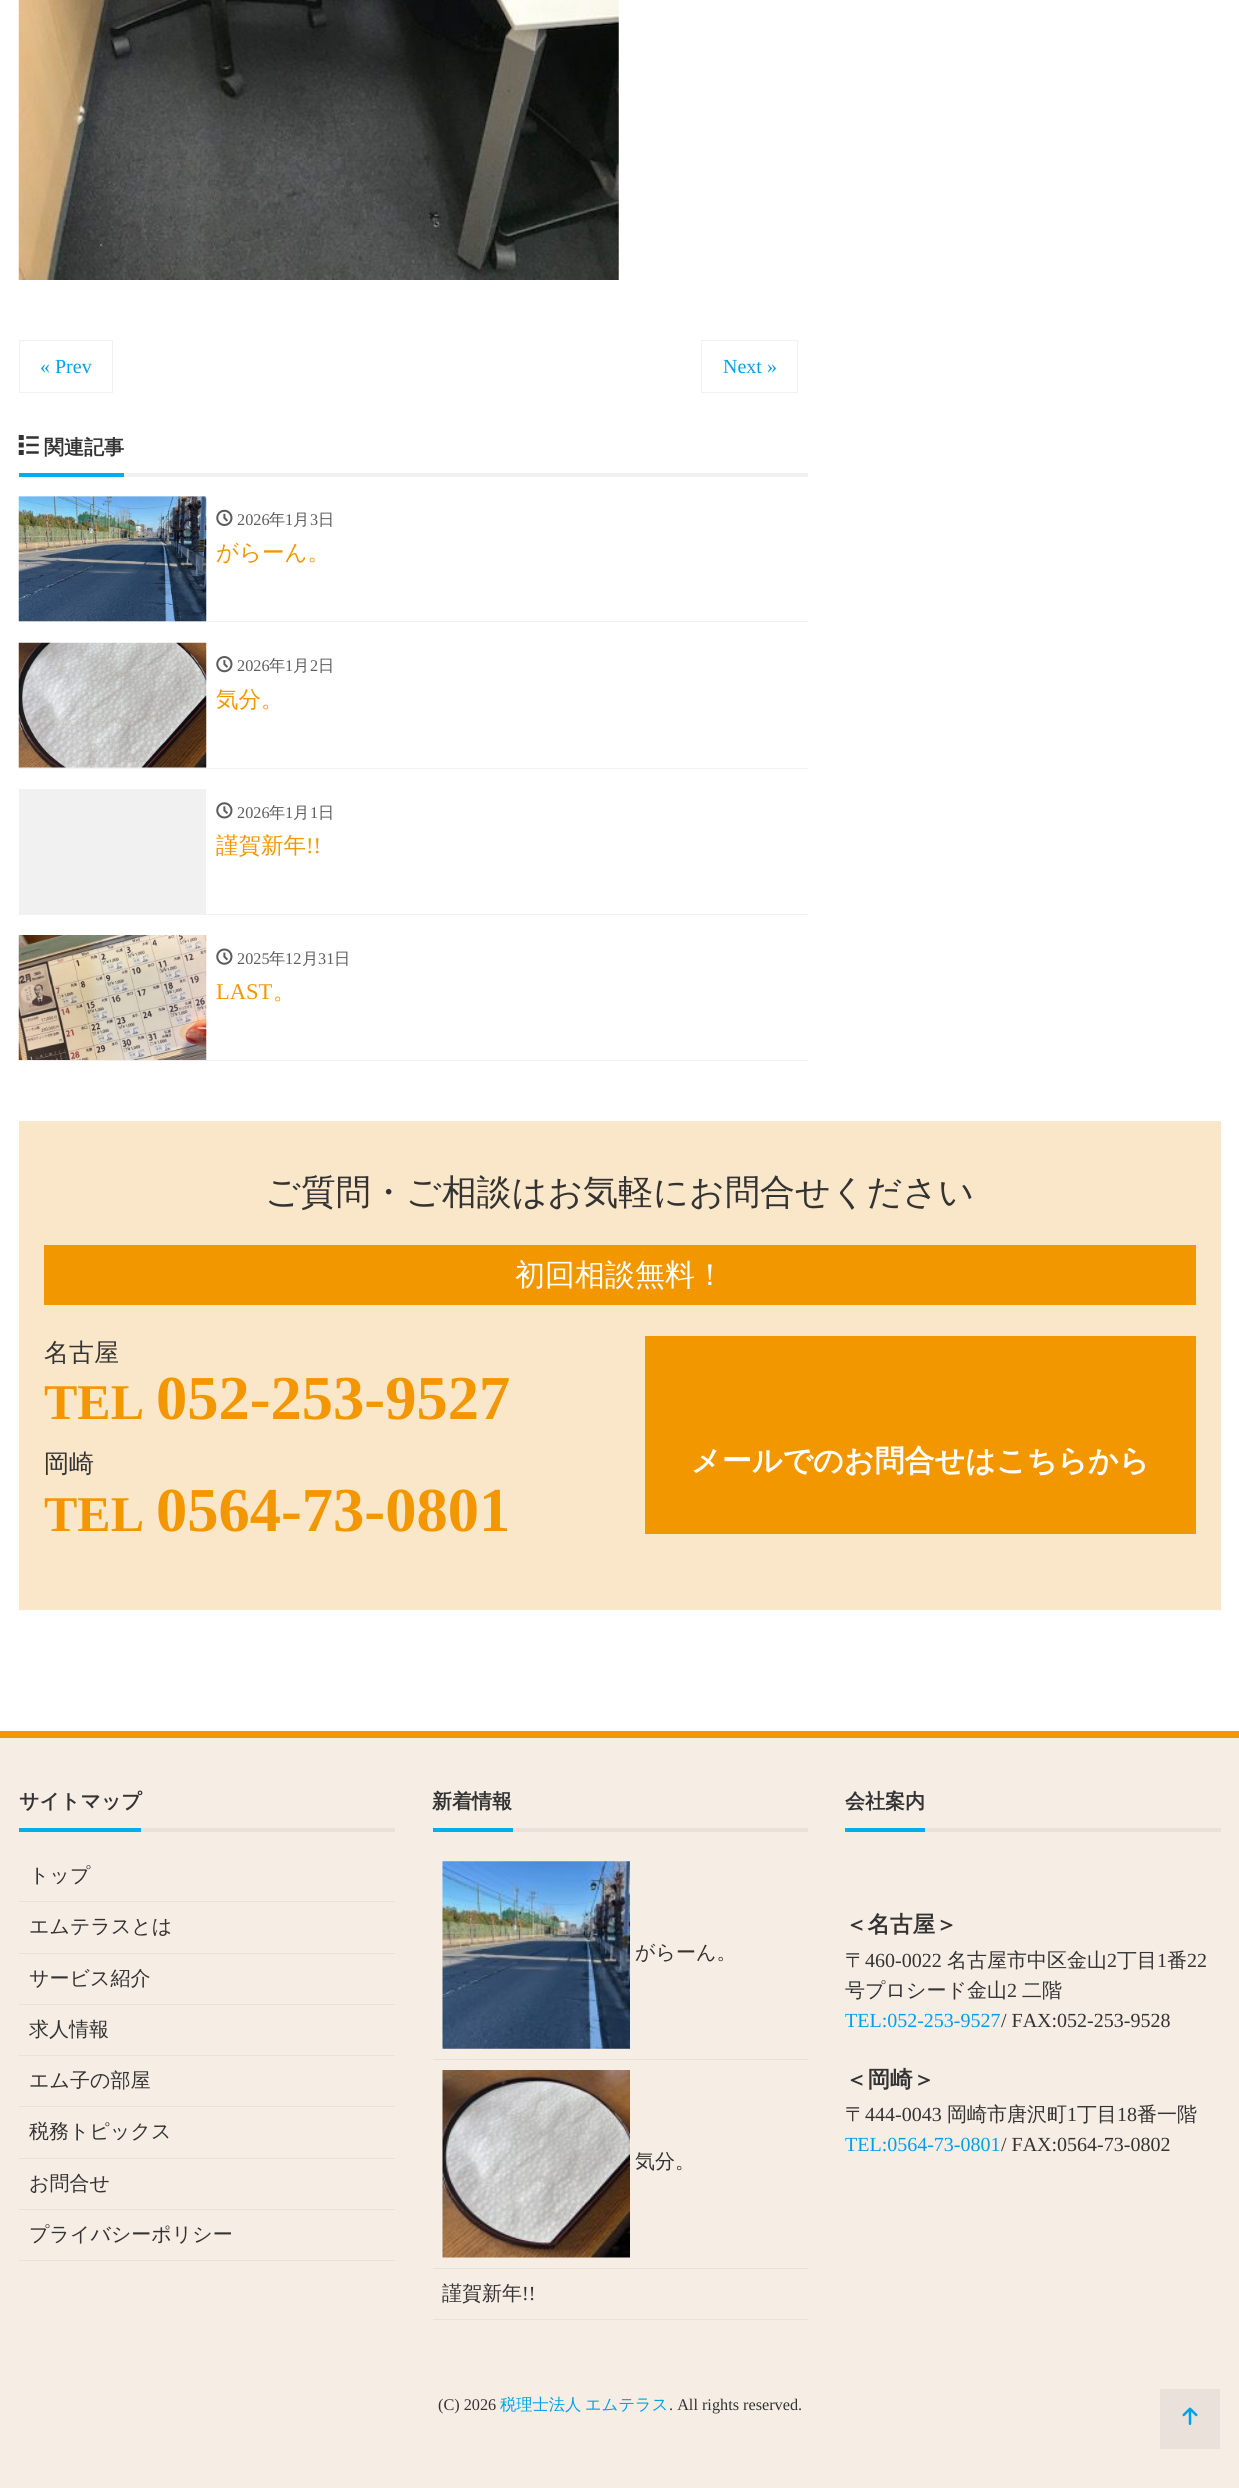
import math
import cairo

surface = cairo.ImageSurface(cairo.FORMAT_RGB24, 1239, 2488)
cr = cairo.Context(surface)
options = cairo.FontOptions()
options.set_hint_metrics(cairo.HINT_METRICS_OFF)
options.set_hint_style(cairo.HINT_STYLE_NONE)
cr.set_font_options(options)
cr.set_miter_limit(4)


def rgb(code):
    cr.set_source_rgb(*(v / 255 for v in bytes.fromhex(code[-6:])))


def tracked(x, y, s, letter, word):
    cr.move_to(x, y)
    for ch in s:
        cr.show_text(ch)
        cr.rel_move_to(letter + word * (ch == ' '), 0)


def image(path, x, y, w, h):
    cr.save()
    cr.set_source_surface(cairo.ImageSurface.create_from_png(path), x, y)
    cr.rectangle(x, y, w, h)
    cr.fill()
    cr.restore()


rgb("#ffffff")
cr.paint()
image("img/1.png", 18, 0, 601, 280)
cr.rectangle(19.5, 340.5, 93, 52)
rgb("#f1f1f1")
cr.set_line_width(1)
cr.stroke()
cr.rectangle(701.5, 340.5, 96, 52)
cr.stroke()
cr.rectangle(124, 473, 684, 4)
cr.fill()
rgb("#00aeef")
cr.rectangle(19, 473, 105, 4)
cr.fill()
image("img/2.png", 18, 435, 21, 20)
rgb("#f1f1f1")
cr.rectangle(19, 621, 789, 1)
cr.fill()
cr.rectangle(19, 496, 187, 1)
cr.fill()
image("img/3.png", 18, 496, 189, 126)
image("img/4.png", 216, 509, 17, 17)
cr.rectangle(19, 768, 789, 1)
cr.fill()
cr.rectangle(19, 767, 187, 1)
cr.fill()
image("img/5.png", 18, 642, 189, 126)
image("img/6.png", 216, 656, 17, 17)
cr.rectangle(19, 914, 789, 1)
cr.fill()
cr.rectangle(19, 789, 187, 125)
cr.fill()
image("img/7.png", 216, 802, 17, 17)
cr.rectangle(19, 1060, 789, 1)
cr.fill()
image("img/8.png", 18, 935, 189, 125)
image("img/9.png", 216, 948, 17, 17)
for x, y, w, h, color in [
    (19, 1121, 1202, 489, "#fae6c8"),
    (44, 1245, 1152, 60, "#f39700"),
    (645, 1336, 551, 198, "#f39700"),
    (0, 1738, 1239, 750, "#f6ede5"),
    (0, 1731, 1239, 7, "#f39700"),
    (141, 1828, 254, 4, "#e9e1da"),
    (19, 1828, 122, 4, "#00aeef"),
    (19, 1901, 376, 1, "#e9e1da"),
    (19, 1953, 376, 1, "#e9e1da"),
    (19, 2004, 376, 1, "#e9e1da"),
    (19, 2055, 376, 1, "#e9e1da"),
    (19, 2106, 376, 1, "#e9e1da"),
    (19, 2158, 376, 1, "#e9e1da"),
    (19, 2209, 376, 1, "#e9e1da"),
    (19, 2260, 376, 1, "#e9e1da"),
    (513, 1828, 295, 4, "#e9e1da"),
    (433, 1828, 80, 4, "#00aeef"),
    (433, 2059, 375, 1, "#e9e1da"),
]:
    rgb(color)
    cr.rectangle(x, y, w, h)
    cr.fill()
image("img/10.png", 442, 1861, 188, 188)
cr.rectangle(433, 2268, 375, 1)
cr.fill()
image("img/11.png", 442, 2070, 188, 188)
for x, y, w, h, color in [
    (433, 2319, 375, 1, "#e9e1da"),
    (925, 1828, 296, 4, "#e9e1da"),
    (845, 1828, 80, 4, "#00aeef"),
    (1160, 2389, 60, 60, "#e9e1da"),
]:
    rgb(color)
    cr.rectangle(x, y, w, h)
    cr.fill()
image("img/12.png", 1182, 2407, 16, 18)
cr.select_font_face("Liberation Serif")
cr.set_font_size(20)
rgb("#00a0e9")
cr.move_to(40, 373)
cr.show_text("« Prev")
cr.move_to(723, 373)
cr.show_text("Next »")
cr.select_font_face("WenQuanYi Zen Hei", cairo.FONT_SLANT_NORMAL, cairo.FONT_WEIGHT_BOLD)
rgb("#333333")
cr.move_to(44, 454)
cr.show_text("関連記事")
cr.select_font_face("Liberation Serif")
cr.set_font_size(16.25)
rgb("#5c5c5c")
cr.move_to(237, 525)
cr.show_text("2026")
cr.select_font_face("WenQuanYi Zen Hei Medium")
cr.move_to(269, 525)
cr.show_text("年")
cr.select_font_face("Liberation Serif")
cr.move_to(285, 525)
cr.show_text("1")
cr.select_font_face("WenQuanYi Zen Hei Medium")
cr.move_to(293, 525)
cr.show_text("月")
cr.select_font_face("Liberation Serif")
cr.move_to(310, 525)
cr.show_text("3")
cr.select_font_face("WenQuanYi Zen Hei Medium")
cr.move_to(318, 525)
cr.show_text("日")
cr.set_font_size(22.5)
rgb("#f39700")
cr.move_to(216, 560)
cr.show_text("がらーん。")
cr.select_font_face("Liberation Serif")
cr.set_font_size(16.25)
rgb("#5c5c5c")
cr.move_to(237, 671)
cr.show_text("2026")
cr.select_font_face("WenQuanYi Zen Hei Medium")
cr.move_to(269, 671)
cr.show_text("年")
cr.select_font_face("Liberation Serif")
cr.move_to(285, 671)
cr.show_text("1")
cr.select_font_face("WenQuanYi Zen Hei Medium")
cr.move_to(293, 671)
cr.show_text("月")
cr.select_font_face("Liberation Serif")
cr.move_to(310, 671)
cr.show_text("2")
cr.select_font_face("WenQuanYi Zen Hei Medium")
cr.move_to(318, 671)
cr.show_text("日")
cr.set_font_size(22.5)
rgb("#f39700")
cr.move_to(216, 707)
cr.show_text("気分。")
cr.select_font_face("Liberation Serif")
cr.set_font_size(16.25)
rgb("#5c5c5c")
cr.move_to(237, 818)
cr.show_text("2026")
cr.select_font_face("WenQuanYi Zen Hei Medium")
cr.move_to(269, 818)
cr.show_text("年")
cr.select_font_face("Liberation Serif")
cr.move_to(285, 818)
cr.show_text("1")
cr.select_font_face("WenQuanYi Zen Hei Medium")
cr.move_to(293, 818)
cr.show_text("月")
cr.select_font_face("Liberation Serif")
cr.move_to(310, 818)
cr.show_text("1")
cr.select_font_face("WenQuanYi Zen Hei Medium")
cr.move_to(318, 818)
cr.show_text("日")
cr.set_font_size(22.5)
rgb("#f39700")
cr.move_to(216, 853)
cr.show_text("謹賀新年")
cr.select_font_face("Liberation Serif")
cr.move_to(306, 853)
cr.show_text("!!")
cr.set_font_size(16.25)
rgb("#5c5c5c")
cr.move_to(237, 964)
cr.show_text("2025")
cr.select_font_face("WenQuanYi Zen Hei Medium")
cr.move_to(269, 964)
cr.show_text("年")
cr.select_font_face("Liberation Serif")
cr.move_to(285, 964)
cr.show_text("12")
cr.select_font_face("WenQuanYi Zen Hei Medium")
cr.move_to(302, 964)
cr.show_text("月")
cr.select_font_face("Liberation Serif")
cr.move_to(318, 964)
cr.show_text("31")
cr.select_font_face("WenQuanYi Zen Hei Medium")
cr.move_to(334, 964)
cr.show_text("日")
cr.select_font_face("Liberation Serif")
cr.set_font_size(22.5)
rgb("#f39700")
cr.move_to(216, 999)
cr.show_text("LAST")
cr.select_font_face("WenQuanYi Zen Hei Medium")
cr.move_to(273, 999)
cr.show_text("。")
cr.set_font_size(35)
rgb("#333333")
cr.move_to(265, 1204)
cr.show_text("ご質問・ご相談はお気軽にお問合せください")
cr.set_font_size(30)
rgb("#ffffff")
cr.move_to(515, 1285)
cr.show_text("初回相談無料！")
cr.set_font_size(25)
rgb("#333333")
cr.move_to(44, 1361)
cr.show_text("名古屋")
cr.select_font_face("Liberation Serif", cairo.FONT_SLANT_NORMAL, cairo.FONT_WEIGHT_BOLD)
cr.set_font_size(50)
rgb("#f39700")
cr.move_to(44, 1419)
cr.show_text("TEL")
cr.set_font_size(62.5)
cr.move_to(156, 1419)
cr.show_text("052-253-9527")
cr.select_font_face("WenQuanYi Zen Hei Medium")
cr.set_font_size(25)
rgb("#333333")
cr.move_to(44, 1472)
cr.show_text("岡崎")
cr.select_font_face("Liberation Serif", cairo.FONT_SLANT_NORMAL, cairo.FONT_WEIGHT_BOLD)
cr.set_font_size(50)
rgb("#f39700")
cr.move_to(44, 1531)
cr.show_text("TEL")
cr.set_font_size(62.5)
cr.move_to(156, 1531)
cr.show_text("0564-73-0801")
cr.select_font_face("WenQuanYi Zen Hei", cairo.FONT_SLANT_NORMAL, cairo.FONT_WEIGHT_BOLD)
cr.set_font_size(30)
rgb("#ffffff")
cr.move_to(691, 1471)
cr.show_text("メールでのお問合せはこちらから")
cr.set_font_size(20)
rgb("#333333")
cr.move_to(19, 1808)
cr.show_text("サイトマップ")
cr.select_font_face("WenQuanYi Zen Hei Medium")
for x, y, s in [
    (29, 1882, "トップ"),
    (29, 1933, "エムテラスとは"),
    (29, 1985, "サービス紹介"),
    (29, 2036, "求人情報"),
    (29, 2087, "エム子の部屋"),
    (29, 2138, "税務トピックス"),
    (29, 2190, "お問合せ"),
    (29, 2241, "プライバシーポリシー"),
]:
    cr.move_to(x, y)
    cr.show_text(s)
cr.select_font_face("WenQuanYi Zen Hei", cairo.FONT_SLANT_NORMAL, cairo.FONT_WEIGHT_BOLD)
cr.move_to(432, 1808)
cr.show_text("新着情報")
cr.select_font_face("WenQuanYi Zen Hei Medium")
for x, y, s in [
    (635, 1959, "がらーん。"),
    (635, 2168, "気分。"),
    (442, 2300, "謹賀新年"),
]:
    cr.move_to(x, y)
    cr.show_text(s)
cr.select_font_face("Liberation Serif")
cr.move_to(522, 2300)
cr.show_text("!!")
cr.select_font_face("WenQuanYi Zen Hei", cairo.FONT_SLANT_NORMAL, cairo.FONT_WEIGHT_BOLD)
cr.move_to(845, 1808)
cr.show_text("会社案内")
cr.set_font_size(22.5)
cr.move_to(845, 1932)
cr.show_text("＜名古屋＞")
cr.select_font_face("WenQuanYi Zen Hei Medium")
cr.set_font_size(20)
cr.move_to(845, 1967)
cr.show_text("〒")
cr.select_font_face("Liberation Serif")
cr.move_to(865, 1967)
cr.show_text("460-0022")
cr.select_font_face("WenQuanYi Zen Hei Medium")
cr.move_to(947, 1967)
cr.show_text("名古屋市中区金山")
cr.select_font_face("Liberation Serif")
cr.move_to(1107, 1967)
cr.show_text("2")
cr.select_font_face("WenQuanYi Zen Hei Medium")
cr.move_to(1117, 1967)
cr.show_text("丁目")
cr.select_font_face("Liberation Serif")
cr.move_to(1157, 1967)
cr.show_text("1")
cr.select_font_face("WenQuanYi Zen Hei Medium")
cr.move_to(1167, 1967)
cr.show_text("番")
cr.select_font_face("Liberation Serif")
cr.move_to(1187, 1967)
cr.show_text("22")
cr.select_font_face("WenQuanYi Zen Hei Medium")
cr.move_to(845, 1997)
cr.show_text("号プロシード金山")
cr.select_font_face("Liberation Serif")
cr.move_to(1007, 1997)
cr.show_text("2")
cr.select_font_face("WenQuanYi Zen Hei Medium")
cr.move_to(1022, 1997)
cr.show_text("二階")
cr.select_font_face("Liberation Serif")
rgb("#00a0e9")
cr.move_to(845, 2027)
cr.show_text("TEL:052-253-9527")
rgb("#333333")
cr.move_to(1001, 2027)
cr.show_text("/ FAX:052-253-9528")
cr.select_font_face("WenQuanYi Zen Hei", cairo.FONT_SLANT_NORMAL, cairo.FONT_WEIGHT_BOLD)
cr.set_font_size(22.5)
cr.move_to(845, 2087)
cr.show_text("＜岡崎＞")
cr.select_font_face("WenQuanYi Zen Hei Medium")
cr.set_font_size(20)
cr.move_to(845, 2121)
cr.show_text("〒")
cr.select_font_face("Liberation Serif")
cr.move_to(865, 2121)
cr.show_text("444-0043")
cr.select_font_face("WenQuanYi Zen Hei Medium")
cr.move_to(947, 2121)
cr.show_text("岡崎市唐沢町")
cr.select_font_face("Liberation Serif")
cr.move_to(1067, 2121)
cr.show_text("1")
cr.select_font_face("WenQuanYi Zen Hei Medium")
cr.move_to(1077, 2121)
cr.show_text("丁目")
cr.select_font_face("Liberation Serif")
cr.move_to(1117, 2121)
cr.show_text("18")
cr.select_font_face("WenQuanYi Zen Hei Medium")
cr.move_to(1137, 2121)
cr.show_text("番一階")
cr.select_font_face("Liberation Serif")
rgb("#00a0e9")
cr.move_to(845, 2151)
cr.show_text("TEL:0564-73-0801")
rgb("#333333")
cr.move_to(1001, 2151)
cr.show_text("/ FAX:0564-73-0802")
cr.set_font_size(16.25)
cr.move_to(438, 2410)
cr.show_text("(C) 2026")
cr.select_font_face("WenQuanYi Zen Hei Medium")
rgb("#00a0e9")
tracked(500, 2410, "税理士法人 エムテラス", 0, -1)
cr.select_font_face("Liberation Serif")
rgb("#333333")
cr.move_to(669, 2410)
cr.show_text(". All rights reserved.")
surface.write_to_png("page.png")
